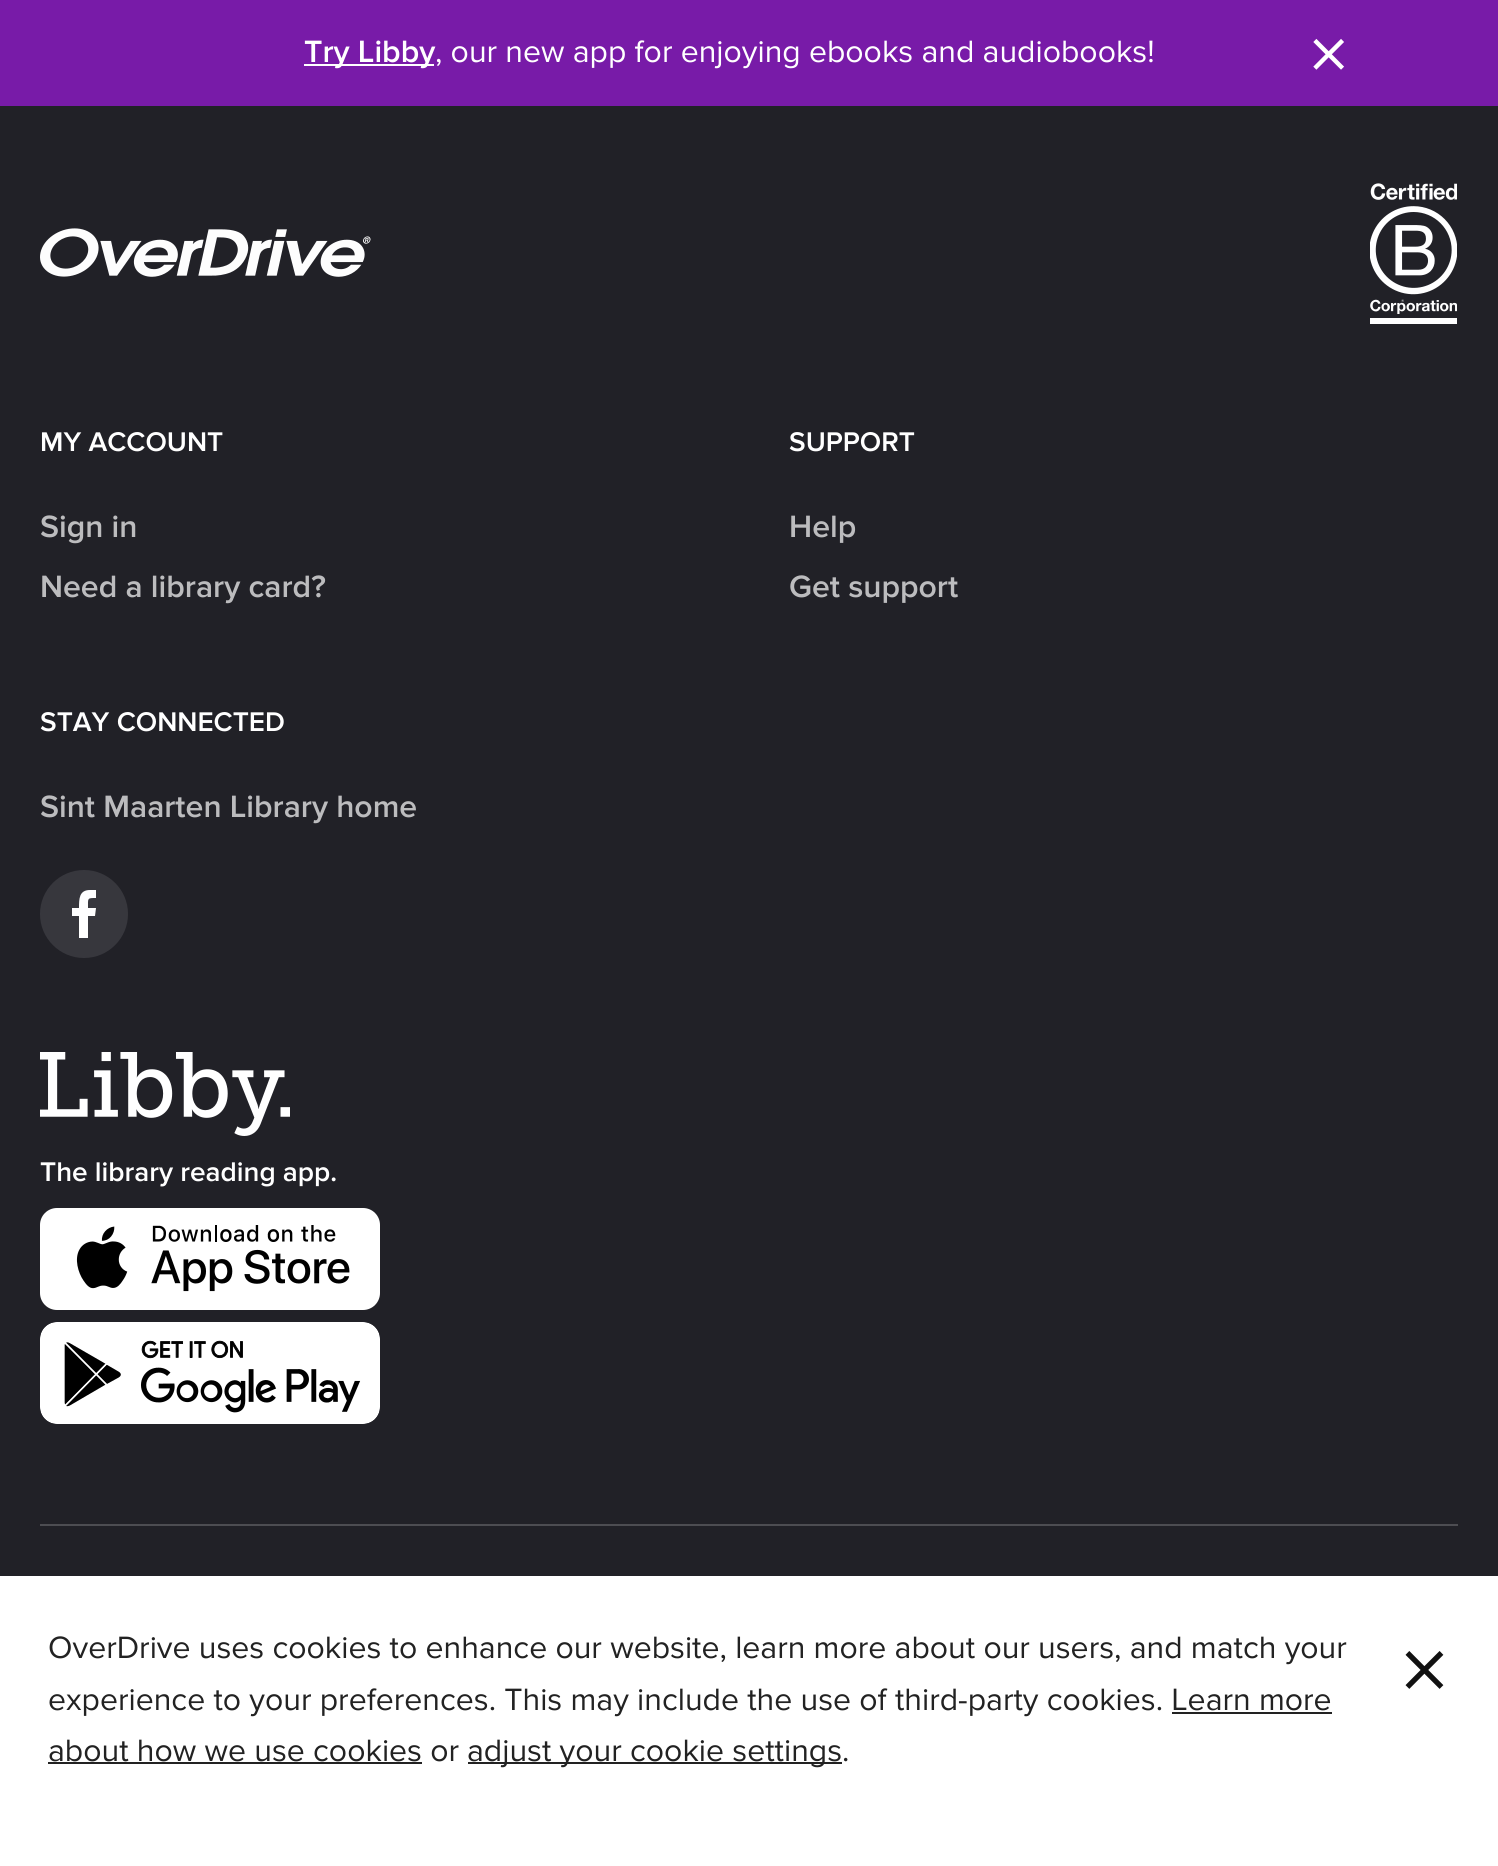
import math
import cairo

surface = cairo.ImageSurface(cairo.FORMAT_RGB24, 1498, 1866)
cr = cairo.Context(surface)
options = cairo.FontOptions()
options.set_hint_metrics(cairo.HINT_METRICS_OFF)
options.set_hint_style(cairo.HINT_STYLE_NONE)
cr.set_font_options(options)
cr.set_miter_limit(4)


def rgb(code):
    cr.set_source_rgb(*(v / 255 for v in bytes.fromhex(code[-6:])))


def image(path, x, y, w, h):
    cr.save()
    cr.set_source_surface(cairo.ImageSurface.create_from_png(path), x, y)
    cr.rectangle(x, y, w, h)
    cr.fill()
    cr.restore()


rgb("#212127")
cr.paint()
rgb("#781ba8")
cr.rectangle(0, 0, 1498, 106)
cr.fill()
rgb("#ffffff")
cr.rectangle(304, 64, 130, 2)
cr.fill()
image("img/1.png", 40, 228, 331, 49)
image("img/2.png", 1370, 183, 87, 141)
rgb("#37373d")
cr.arc(84, 914, 44, 0, 2 * math.pi)
cr.fill()
rgb("#ffffff")
cr.new_path()
cr.move_to(90, 890)
cr.curve_to(79, 890, 79, 899, 79, 908)
cr.line_to(72, 908)
cr.line_to(72, 916)
cr.line_to(79, 916)
cr.line_to(79, 938)
cr.line_to(88, 938)
cr.line_to(88, 916)
cr.line_to(95, 916)
cr.line_to(96, 908)
cr.line_to(88, 908)
cr.curve_to(88, 898, 87, 898, 96, 898)
cr.line_to(96, 890)
cr.close_path()
cr.fill()
image("img/3.png", 40, 1052, 250, 84)
image("img/4.png", 40, 1208, 340, 102)
image("img/5.png", 40, 1322, 340, 102)
for x, y, w, h, color in [
    (40, 1524, 1418, 2, "#4d4d52"),
    (0, 1576, 1498, 290, "#ffffff"),
    (1172, 1712, 160, 2, "#222222"),
    (48, 1762, 374, 2, "#222222"),
    (468, 1762, 374, 2, "#222222"),
]:
    rgb(color)
    cr.rectangle(x, y, w, h)
    cr.fill()
cr.select_font_face("Proxima Nova SemiBold")
cr.set_font_size(32)
rgb("#ffffff")
cr.move_to(304, 62)
cr.show_text("Try Libby")
cr.select_font_face("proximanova")
cr.move_to(435, 62)
cr.show_text(", our new app for enjoying ebooks and audiobooks!")
cr.set_font_size(83)
cr.move_to(1308, 82)
cr.show_text("×")
cr.select_font_face("Proxima Nova SemiBold")
cr.set_font_size(28)
cr.move_to(40, 451)
cr.show_text("MY ACCOUNT")
cr.set_font_size(32)
rgb("#bcbcbe")
cr.move_to(40, 537)
cr.show_text("Sign in")
cr.move_to(40, 597)
cr.show_text("Need a library card?")
cr.set_font_size(28)
rgb("#ffffff")
cr.move_to(789, 451)
cr.show_text("SUPPORT")
cr.set_font_size(32)
rgb("#bcbcbe")
cr.move_to(789, 537)
cr.show_text("Help")
cr.move_to(789, 597)
cr.show_text("Get support")
cr.set_font_size(28)
rgb("#ffffff")
cr.move_to(40, 731)
cr.show_text("STAY CONNECTED")
cr.set_font_size(32)
rgb("#bcbcbe")
cr.move_to(40, 817)
cr.show_text("Sint Maarten Library home")
cr.set_font_size(28)
rgb("#ffffff")
cr.move_to(40, 1181)
cr.show_text("The library reading app.")
cr.select_font_face("proximanova")
cr.set_font_size(32)
rgb("#222222")
for x, y, s in [
    (48, 1658, "OverDrive uses cookies to enhance our website, learn more about our users, and match your"),
    (48, 1710, "experience to your preferences. This may include the use of third-party cookies. Learn more"),
    (48, 1761, "about how we use cookies or"),
    (467, 1761, "adjust your cookie settings."),
]:
    cr.move_to(x, y)
    cr.show_text(s)
cr.set_font_size(102)
rgb("#111111")
cr.move_to(1399, 1704)
cr.show_text("×")
surface.write_to_png("page.png")
